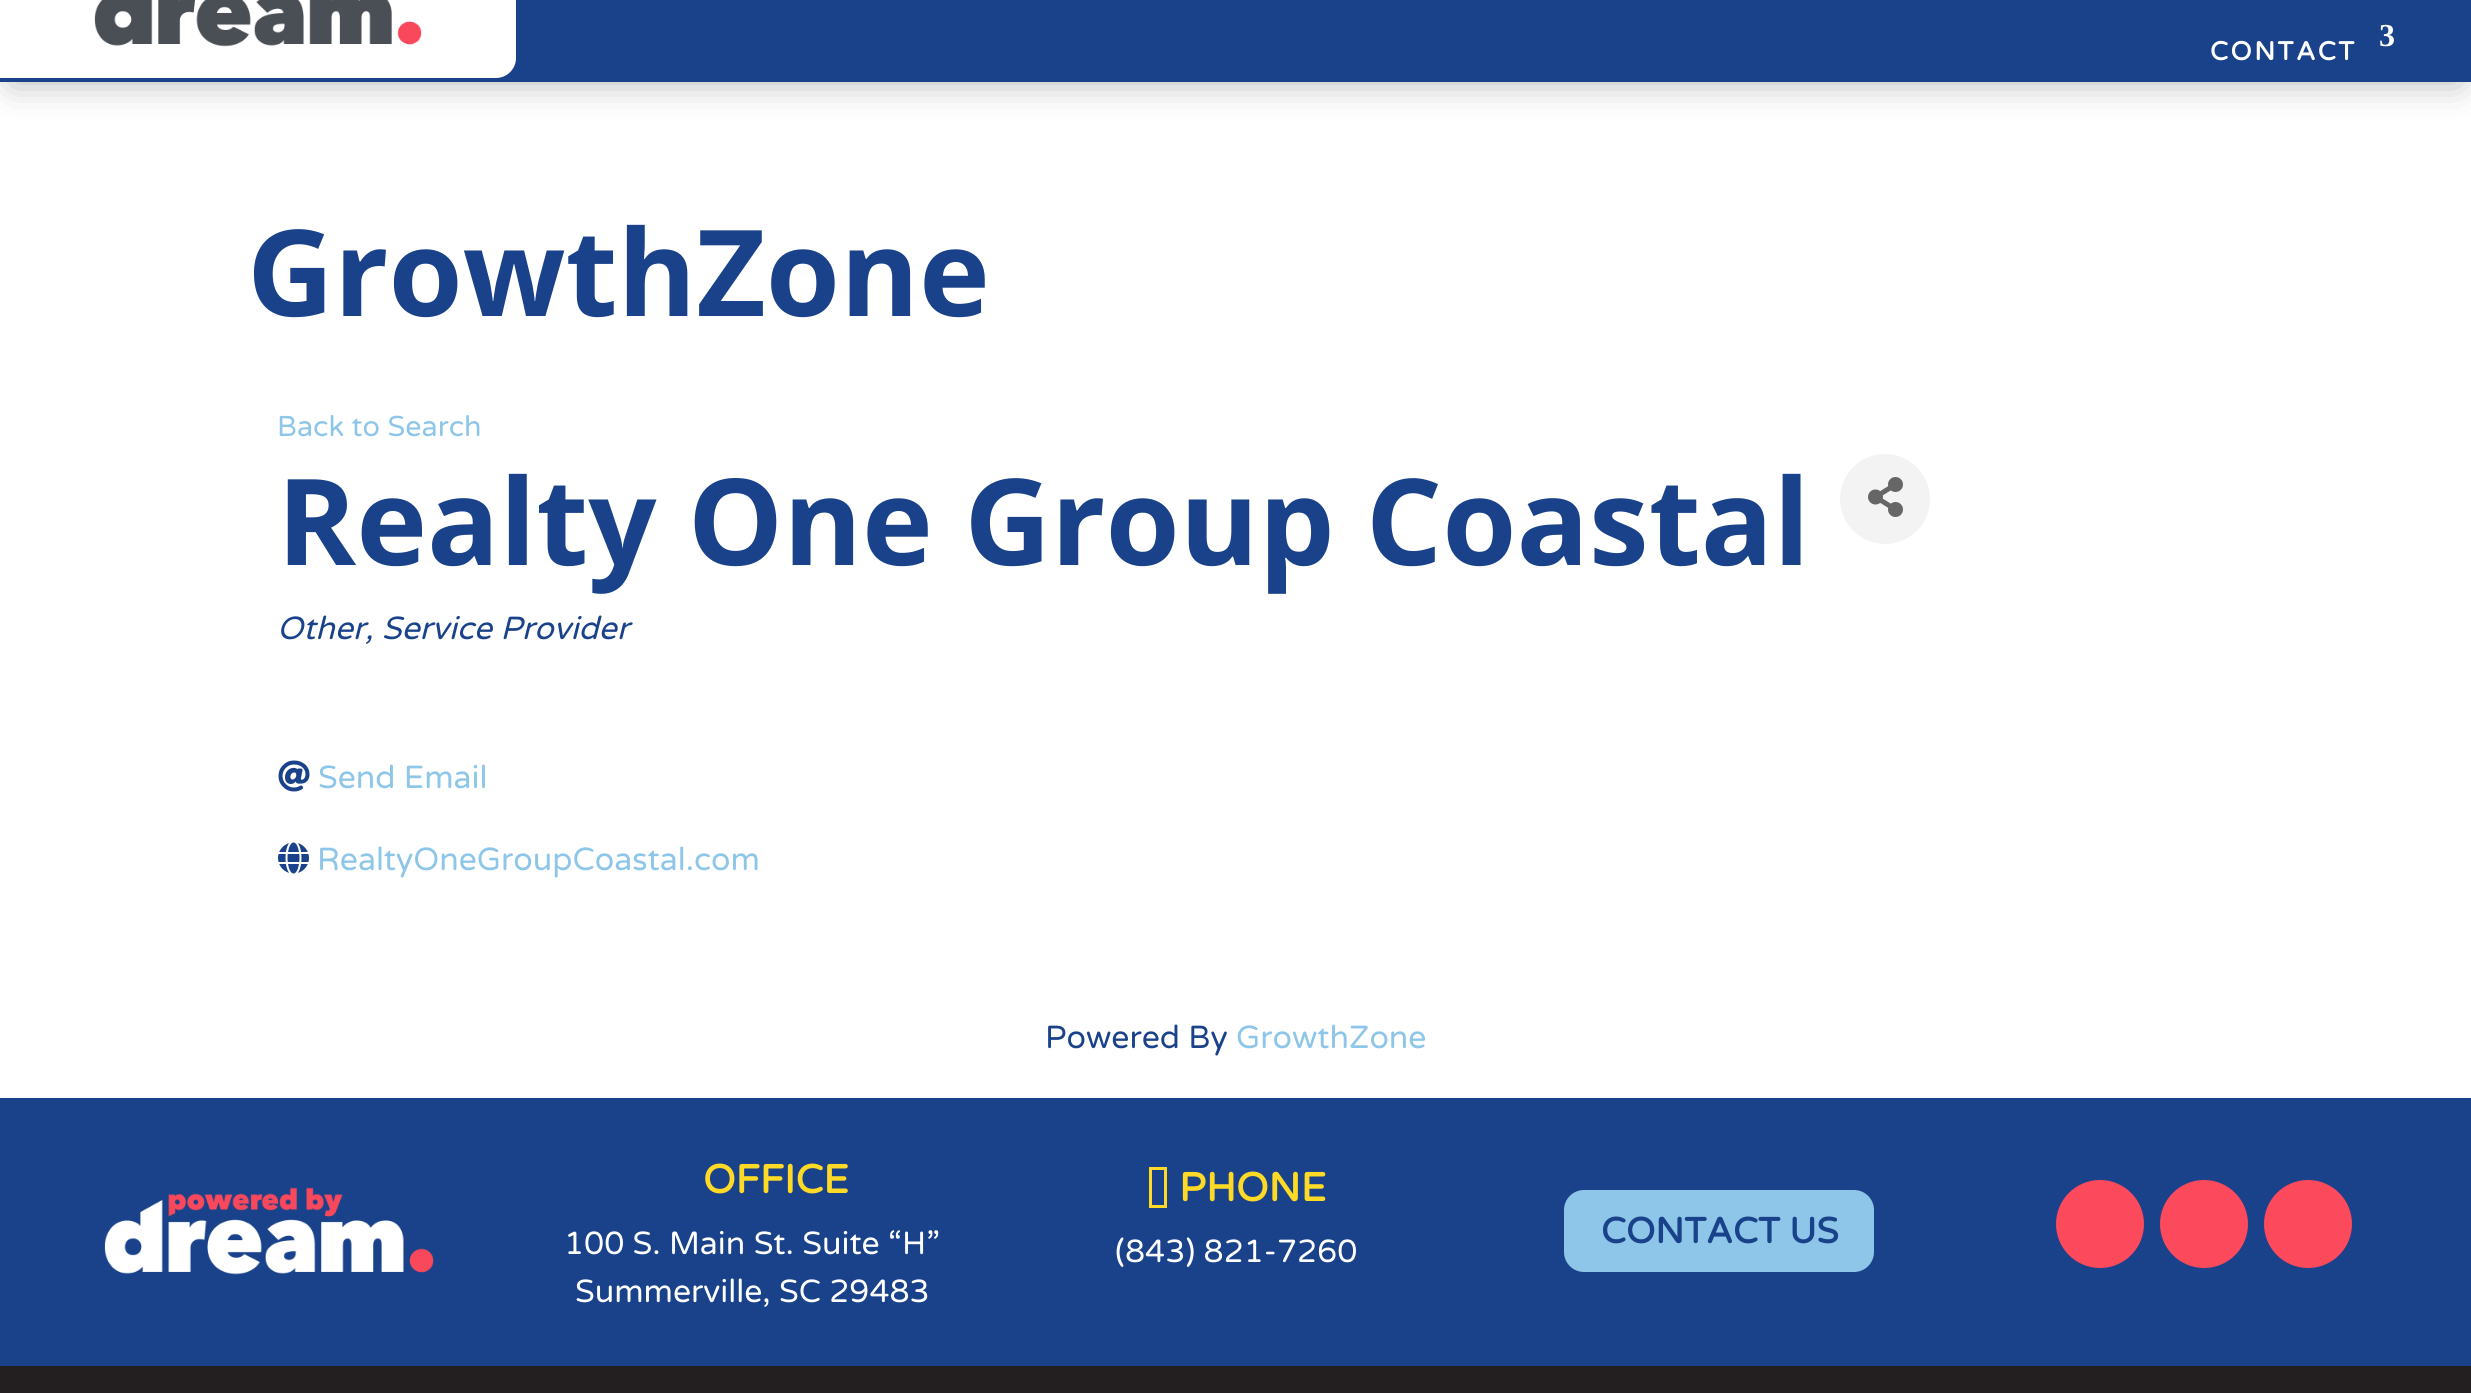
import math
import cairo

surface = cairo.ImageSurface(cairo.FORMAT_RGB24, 2471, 1393)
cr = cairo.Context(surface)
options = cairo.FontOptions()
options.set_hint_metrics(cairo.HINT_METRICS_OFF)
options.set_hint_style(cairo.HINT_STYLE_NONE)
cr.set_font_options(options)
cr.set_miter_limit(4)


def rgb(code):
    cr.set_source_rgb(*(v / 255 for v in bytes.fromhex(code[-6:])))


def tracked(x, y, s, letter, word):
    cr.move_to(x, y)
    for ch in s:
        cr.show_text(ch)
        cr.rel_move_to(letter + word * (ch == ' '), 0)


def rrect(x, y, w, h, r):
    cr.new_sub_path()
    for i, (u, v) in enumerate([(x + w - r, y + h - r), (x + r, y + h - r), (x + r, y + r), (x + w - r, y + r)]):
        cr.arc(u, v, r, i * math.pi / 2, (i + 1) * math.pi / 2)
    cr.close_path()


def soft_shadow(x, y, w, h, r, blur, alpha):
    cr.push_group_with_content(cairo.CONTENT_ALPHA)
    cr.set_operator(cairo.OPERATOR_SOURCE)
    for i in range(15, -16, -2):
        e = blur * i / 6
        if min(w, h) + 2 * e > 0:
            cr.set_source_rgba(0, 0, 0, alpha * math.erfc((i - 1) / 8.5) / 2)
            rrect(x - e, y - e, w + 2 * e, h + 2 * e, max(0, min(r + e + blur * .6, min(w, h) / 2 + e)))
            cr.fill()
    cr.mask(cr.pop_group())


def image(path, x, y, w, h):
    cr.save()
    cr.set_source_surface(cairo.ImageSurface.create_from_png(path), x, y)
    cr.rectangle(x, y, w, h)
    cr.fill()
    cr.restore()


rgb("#ffffff")
cr.paint()
rgb("#000000")
soft_shadow(12, -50, 2448, 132, 0, 18, 0.3)
rgb("#1a428a")
cr.rectangle(0, 0, 2471, 82)
cr.fill()
rgb("#ffffff")
cr.new_path()
cr.move_to(0, -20)
cr.line_to(496, -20)
cr.curve_to(507, -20, 516, -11, 516, 0)
cr.line_to(516, 58)
cr.curve_to(516, 69, 507, 78, 496, 78)
cr.line_to(0, 78)
cr.close_path()
cr.fill()
image("img/1.png", 94, 0, 328, 47)
rgb("#f3f3f3")
cr.arc(1885, 499, 45, 0, 2 * math.pi)
cr.fill()
image("img/2.png", 1868, 477, 35, 40)
image("img/3.png", 278, 760, 32, 32)
image("img/4.png", 278, 842, 31, 32)
rgb("#1a428a")
cr.rectangle(0, 1098, 2471, 268)
cr.fill()
image("img/5.png", 104, 1187, 330, 88)
rgb("#fed925")
cr.new_path()
cr.move_to(1152, 1205)
cr.line_to(1152, 1170)
cr.line_to(1164, 1170)
cr.line_to(1164, 1205)
cr.close_path()
cr.move_to(1149, 1208)
cr.line_to(1167, 1208)
cr.line_to(1167, 1167)
cr.line_to(1149, 1167)
cr.close_path()
cr.fill()
rgb("#8dc6e8")
rrect(1564, 1190, 310, 82, 20)
cr.fill()
rgb("#fd495c")
cr.arc(2100, 1224, 44, 0, 2 * math.pi)
cr.fill()
cr.arc(2204, 1224, 44, 0, 2 * math.pi)
cr.fill()
cr.arc(2308, 1224, 44, 0, 2 * math.pi)
cr.fill()
rgb("#231f20")
cr.rectangle(0, 1366, 2471, 27)
cr.fill()
cr.select_font_face("Liberation Serif", cairo.FONT_SLANT_NORMAL, cairo.FONT_WEIGHT_BOLD)
cr.set_font_size(32)
rgb("#ffffff")
tracked(2379, 46, "3", 2.5, 0)
cr.select_font_face("Varela Round", cairo.FONT_SLANT_NORMAL, cairo.FONT_WEIGHT_BOLD)
cr.set_font_size(26)
tracked(2210, 60, "CONTACT", 2.5, 0)
cr.select_font_face("Open Sans", cairo.FONT_SLANT_NORMAL, cairo.FONT_WEIGHT_BOLD)
cr.set_font_size(120)
rgb("#1a428a")
cr.move_to(247, 316)
cr.show_text("GrowthZone")
cr.select_font_face("Varela Round")
cr.set_font_size(28.75)
rgb("#8dc6e8")
cr.move_to(277, 436)
cr.show_text("Back to Search")
cr.select_font_face("Open Sans", cairo.FONT_SLANT_NORMAL, cairo.FONT_WEIGHT_BOLD)
cr.set_font_size(120)
rgb("#1a428a")
cr.move_to(277, 565)
cr.show_text("Realty One Group Coastal")
cr.select_font_face("Varela Round", cairo.FONT_SLANT_ITALIC)
cr.set_font_size(32)
cr.move_to(277, 639)
cr.show_text("Other, Service Provider")
cr.select_font_face("Varela Round")
rgb("#8dc6e8")
cr.move_to(318, 788)
cr.show_text("Send Email")
cr.move_to(317, 870)
cr.show_text("RealtyOneGroupCoastal.com")
rgb("#1a428a")
cr.move_to(1045, 1048)
cr.show_text("Powered By")
rgb("#8dc6e8")
cr.move_to(1236, 1048)
cr.show_text("GrowthZone")
cr.select_font_face("Varela Round", cairo.FONT_SLANT_NORMAL, cairo.FONT_WEIGHT_BOLD)
cr.set_font_size(40)
rgb("#fed925")
cr.move_to(703, 1193)
cr.show_text("OFFICE")
cr.select_font_face("Varela Round")
cr.set_font_size(32)
rgb("#ffffff")
cr.move_to(564, 1254)
cr.show_text("100 S. Main St. Suite “H”")
cr.move_to(575, 1302)
cr.show_text("Summerville, SC 29483")
cr.select_font_face("Varela Round", cairo.FONT_SLANT_NORMAL, cairo.FONT_WEIGHT_BOLD)
cr.set_font_size(40)
rgb("#fed925")
cr.move_to(1179, 1201)
cr.show_text("PHONE")
cr.select_font_face("Varela Round")
cr.set_font_size(32)
rgb("#ffffff")
cr.move_to(1115, 1262)
cr.show_text("(843) 821-7260")
cr.select_font_face("Varela Round", cairo.FONT_SLANT_NORMAL, cairo.FONT_WEIGHT_BOLD)
cr.set_font_size(36)
rgb("#1a428a")
cr.move_to(1601, 1243)
cr.show_text("CONTACT US")
surface.write_to_png("page.png")
